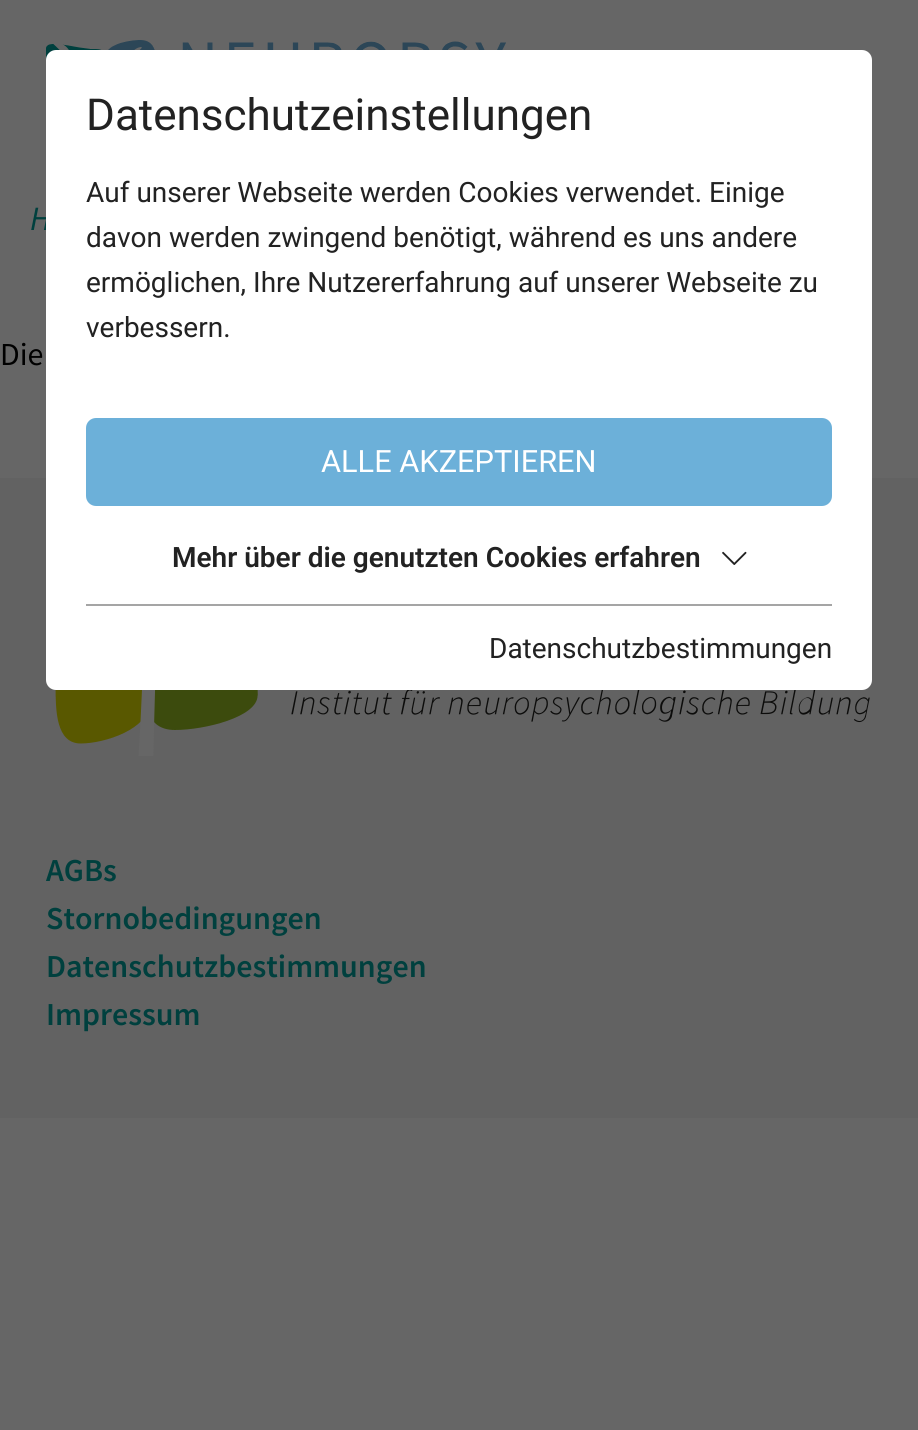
import math
import cairo

surface = cairo.ImageSurface(cairo.FORMAT_RGB24, 918, 1430)
cr = cairo.Context(surface)
options = cairo.FontOptions()
options.set_hint_metrics(cairo.HINT_METRICS_OFF)
options.set_hint_style(cairo.HINT_STYLE_NONE)
cr.set_font_options(options)
cr.set_miter_limit(4)


def rgb(code):
    cr.set_source_rgb(*(v / 255 for v in bytes.fromhex(code[-6:])))


def rrect(x, y, w, h, r):
    cr.new_sub_path()
    for i, (u, v) in enumerate([(x + w - r, y + h - r), (x + r, y + h - r), (x + r, y + r), (x + w - r, y + r)]):
        cr.arc(u, v, r, i * math.pi / 2, (i + 1) * math.pi / 2)
    cr.close_path()


def image(path, x, y, w, h):
    cr.save()
    cr.set_source_surface(cairo.ImageSurface.create_from_png(path), x, y)
    cr.rectangle(x, y, w, h)
    cr.fill()
    cr.restore()


rgb("#666666")
cr.paint()
image("img/1.png", 46, 40, 460, 20)
rgb("#626262")
cr.rectangle(0, 478, 918, 640)
cr.fill()
image("img/3.png", 55, 689, 815, 67)
cr.select_font_face("Source Sans Pro", cairo.FONT_SLANT_ITALIC)
cr.set_font_size(34)
rgb("#00403e")
cr.move_to(30, 230)
cr.show_text("H")
rgb("#ffffff")
rrect(46, 50, 826, 640, 10)
cr.fill()
image("img/2.png", 722, 551, 25, 14)
cr.select_font_face("Roboto SemiBold")
cr.set_font_size(28)
rgb("#222222")
cr.move_to(172, 567)
cr.show_text("Mehr über die genutzten Cookies erfahren")
cr.select_font_face("Roboto")
cr.move_to(489, 658)
cr.show_text("Datenschutzbestimmungen")
rgb("#6cb0d9")
rrect(86, 418, 746, 88, 10)
cr.fill()
cr.set_font_size(30.75)
rgb("#ffffff")
cr.move_to(321, 472)
cr.show_text("ALLE AKZEPTIEREN")
cr.set_font_size(28)
rgb("#222222")
for x, y, s in [
    (86, 337, "verbessern."),
    (86, 292, "ermöglichen, Ihre Nutzererfahrung auf unserer Webseite zu"),
    (86, 247, "davon werden zwingend benötigt, während es uns andere"),
    (86, 202, "Auf unserer Webseite werden Cookies verwendet. Einige"),
]:
    cr.move_to(x, y)
    cr.show_text(s)
cr.set_font_size(44)
cr.move_to(86, 130)
cr.show_text("Datenschutzeinstellungen")
rgb("#a5a5a5")
cr.rectangle(86, 604, 746, 2)
cr.fill()
cr.select_font_face("Source Sans Pro")
cr.set_font_size(32)
rgb("#000000")
cr.move_to(0, 365)
cr.show_text("Die")
cr.select_font_face("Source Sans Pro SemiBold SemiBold")
rgb("#00403e")
for x, y, s in [
    (46, 881, "AGBs"),
    (46, 929, "Stornobedingungen"),
    (46, 977, "Datenschutzbestimmungen"),
    (46, 1025, "Impressum"),
]:
    cr.move_to(x, y)
    cr.show_text(s)
surface.write_to_png("page.png")
